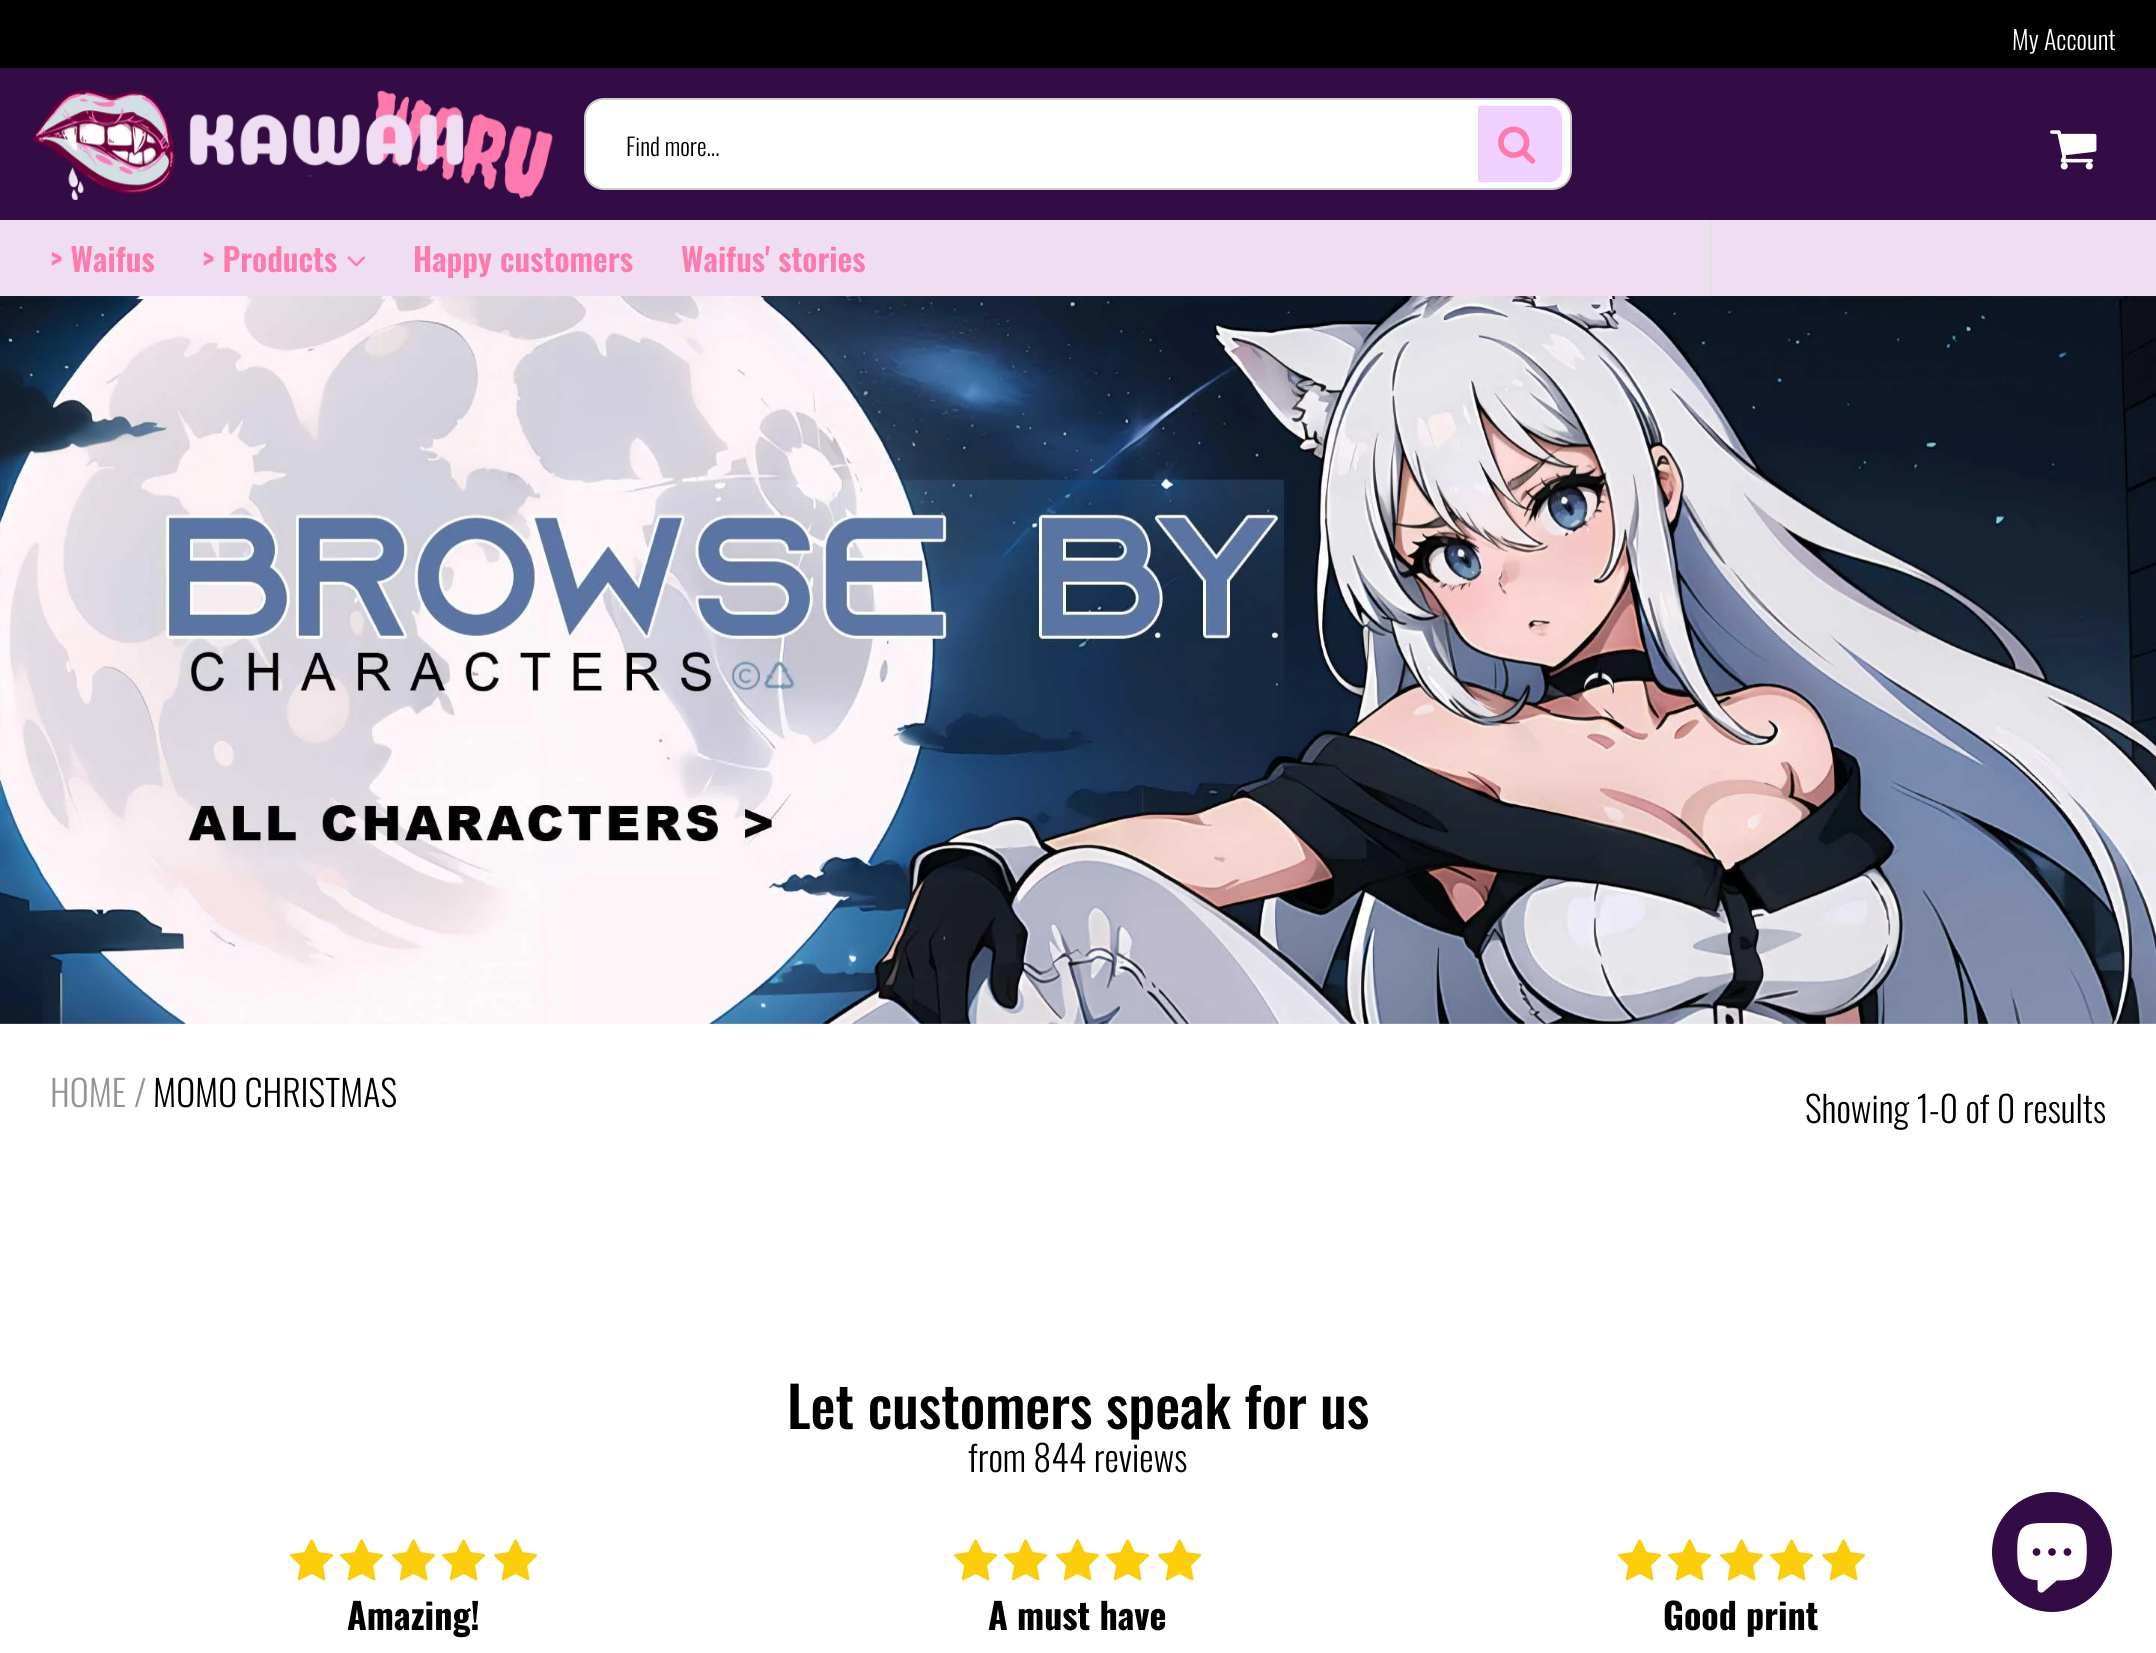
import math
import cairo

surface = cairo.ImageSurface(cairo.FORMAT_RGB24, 2156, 1653)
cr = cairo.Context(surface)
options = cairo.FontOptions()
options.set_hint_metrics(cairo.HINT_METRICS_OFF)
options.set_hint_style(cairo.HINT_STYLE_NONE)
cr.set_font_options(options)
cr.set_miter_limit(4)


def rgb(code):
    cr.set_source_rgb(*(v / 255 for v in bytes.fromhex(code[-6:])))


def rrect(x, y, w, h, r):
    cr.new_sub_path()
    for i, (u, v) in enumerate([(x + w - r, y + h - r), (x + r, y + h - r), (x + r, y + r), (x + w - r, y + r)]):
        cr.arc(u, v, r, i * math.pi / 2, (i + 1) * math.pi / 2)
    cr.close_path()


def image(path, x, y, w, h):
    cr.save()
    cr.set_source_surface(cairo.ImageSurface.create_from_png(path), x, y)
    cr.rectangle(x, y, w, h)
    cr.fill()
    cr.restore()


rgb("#ffffff")
cr.paint()
rgb("#000000")
cr.rectangle(0, 0, 2156, 68)
cr.fill()
rgb("#330c46")
cr.rectangle(0, 68, 2156, 152)
cr.fill()
image("img/1.png", 32, 90, 521, 110)
rgb("#ffffff")
rrect(585, 99, 986, 90, 19)
cr.fill_preserve()
rgb("#cccccc")
cr.stroke()
rgb("#f0d0ff")
cr.new_path()
cr.move_to(1478, 106)
cr.line_to(1550, 106)
cr.curve_to(1556.5, 106, 1562, 111.5, 1562, 118)
cr.line_to(1562, 170)
cr.curve_to(1562, 176.5, 1556.5, 182, 1550, 182)
cr.line_to(1478, 182)
cr.close_path()
cr.fill()
image("img/2.png", 1498, 126, 38, 38)
image("img/3.png", 2050, 130, 47, 40)
rgb("#efddf2")
cr.rectangle(0, 220, 2156, 76)
cr.fill()
image("img/4.png", 347, 256, 19, 11)
rgb("#e1e1e1")
cr.rectangle(1710, 220, 2, 76)
cr.fill()
image("img/5.png", 0, 296, 2156, 728)
image("img/6.png", 290, 1539, 44, 42)
image("img/6.png", 340, 1539, 44, 42)
image("img/6.png", 392, 1539, 44, 42)
image("img/6.png", 442, 1539, 44, 42)
image("img/6.png", 494, 1539, 44, 42)
image("img/6.png", 954, 1539, 44, 42)
image("img/6.png", 1004, 1539, 44, 42)
image("img/6.png", 1056, 1539, 44, 42)
image("img/6.png", 1106, 1539, 44, 42)
image("img/6.png", 1158, 1539, 44, 42)
image("img/6.png", 1618, 1539, 44, 42)
image("img/6.png", 1668, 1539, 44, 42)
image("img/6.png", 1720, 1539, 44, 42)
image("img/6.png", 1770, 1539, 44, 42)
image("img/6.png", 1822, 1539, 44, 42)
rgb("#330c46")
cr.arc(2052, 1552, 60, 0, 2 * math.pi)
cr.fill()
image("img/7.png", 2017, 1523, 70, 70)
cr.select_font_face("Oswald Light")
cr.set_font_size(26)
rgb("#ffffff")
cr.move_to(2012, 50)
cr.show_text("My Account")
cr.set_font_size(24)
rgb("#000000")
cr.move_to(626, 156)
cr.show_text("Find more...")
cr.select_font_face("Oswald SemiBold")
cr.set_font_size(32)
rgb("#fd7aac")
for x, y, s in [
    (50, 272, "> Waifus"),
    (202, 272, "> Products"),
    (413, 272, "Happy customers"),
    (681, 272, "Waifus' stories"),
]:
    cr.move_to(x, y)
    cr.show_text(s)
cr.select_font_face("Oswald Light")
cr.set_font_size(36)
rgb("#949494")
cr.move_to(50, 1107)
cr.show_text("HOME")
cr.move_to(134, 1107)
cr.show_text("/")
rgb("#000000")
cr.move_to(153, 1107)
cr.show_text("MOMO CHRISTMAS")
cr.move_to(1805, 1123)
cr.show_text("Showing 1-0 of 0 results")
cr.select_font_face("Oswald Medium")
cr.set_font_size(56)
cr.move_to(787, 1429)
cr.show_text("Let customers speak for us")
cr.select_font_face("Oswald Light")
cr.set_font_size(36)
cr.move_to(968, 1472)
cr.show_text("from 844 reviews")
cr.select_font_face("Oswald", cairo.FONT_SLANT_NORMAL, cairo.FONT_WEIGHT_BOLD)
for x, y, s in [
    (347, 1630, "Amazing!"),
    (988, 1630, "A must have"),
    (1663, 1630, "Good print"),
]:
    cr.move_to(x, y)
    cr.show_text(s)
surface.write_to_png("page.png")
